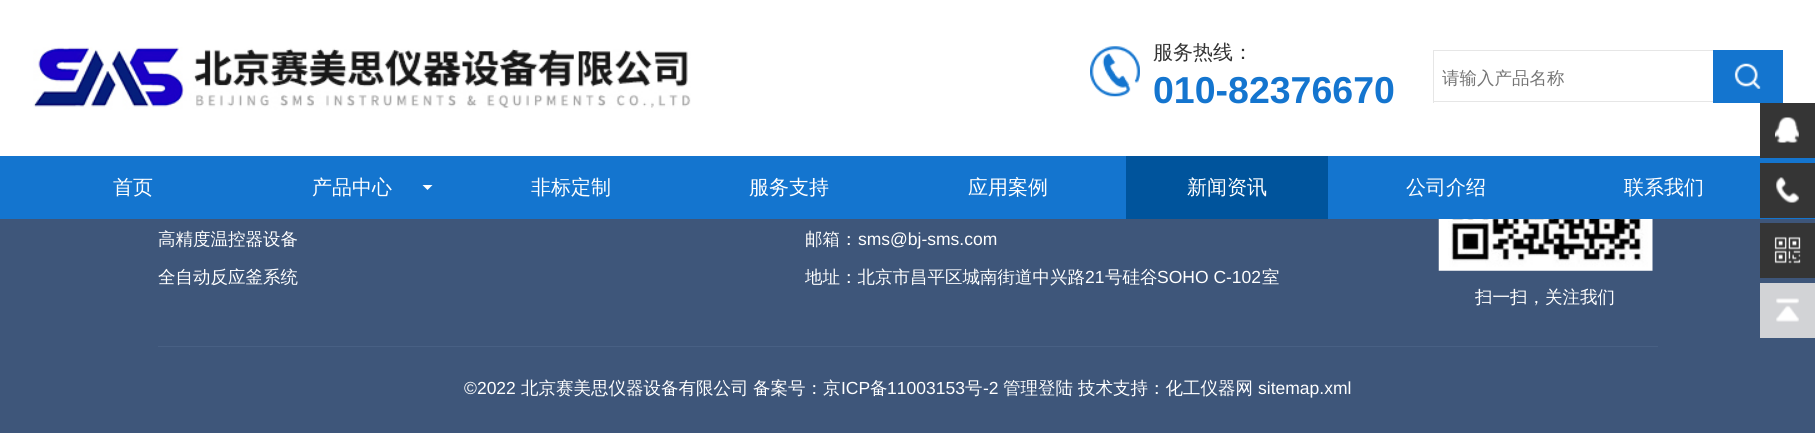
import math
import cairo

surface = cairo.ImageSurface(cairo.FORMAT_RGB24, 1815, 433)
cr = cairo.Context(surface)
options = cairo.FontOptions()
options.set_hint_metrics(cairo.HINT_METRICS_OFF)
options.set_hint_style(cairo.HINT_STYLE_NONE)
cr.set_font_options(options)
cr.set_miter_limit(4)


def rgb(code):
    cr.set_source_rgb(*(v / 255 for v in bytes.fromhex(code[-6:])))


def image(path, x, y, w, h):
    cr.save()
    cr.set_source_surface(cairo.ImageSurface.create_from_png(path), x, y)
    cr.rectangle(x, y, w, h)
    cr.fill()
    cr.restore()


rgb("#3e567a")
cr.paint()
rgb("#ffffff")
cr.rectangle(0, 0, 1815, 156)
cr.fill()
image("img/1.png", 33, 47, 658, 63)
image("img/2.png", 1090, 46, 50, 51)
for x, y, w, h, color in [
    (1433, 50, 280, 1, "#e6e6e6"),
    (1433, 101, 280, 1, "#e6e6e6"),
    (1433, 50, 1, 53, "#e6e6e6"),
    (1713, 50, 70, 53, "#1475cf"),
]:
    rgb(color)
    cr.rectangle(x, y, w, h)
    cr.fill()
image("img/3.png", 1734, 63, 27, 26)
cr.rectangle(0, 156, 1815, 63)
cr.fill()
rgb("#ffffff")
cr.new_path()
cr.move_to(422.5, 185)
cr.line_to(432.5, 185)
cr.line_to(427.5, 190)
cr.close_path()
cr.fill()
rgb("#00549c")
cr.rectangle(1126, 156, 202, 63)
cr.fill()
rgb("#353535")
cr.rectangle(1760, 103, 55, 55)
cr.fill()
image("img/4.png", 1775, 117, 24, 26)
cr.rectangle(1760, 163, 55, 55)
cr.fill()
image("img/5.png", 1776, 177, 23, 26)
cr.rectangle(1760, 223, 55, 55)
cr.fill()
image("img/6.png", 1774, 236, 27, 28)
rgb("#d2d3d6")
cr.rectangle(1760, 283, 55, 55)
cr.fill()
image("img/7.png", 1776, 298, 23, 24)
image("img/8.png", 1438, 219, 215, 52)
rgb("#486084")
cr.rectangle(158, 346, 1500, 1)
cr.fill()
cr.select_font_face("WenQuanYi Zen Hei Medium")
cr.set_font_size(20)
rgb("#333333")
cr.move_to(1153, 59)
cr.show_text("服务热线：")
cr.select_font_face("Liberation Sans", cairo.FONT_SLANT_NORMAL, cairo.FONT_WEIGHT_BOLD)
cr.set_font_size(37.5)
rgb("#1475cf")
cr.move_to(1153, 103)
cr.show_text("010-82376670")
cr.select_font_face("WenQuanYi Zen Hei Medium")
cr.set_font_size(17.5)
rgb("#757575")
cr.move_to(1442, 84)
cr.show_text("请输入产品名称")
cr.set_font_size(20)
rgb("#ffffff")
for x, y, s in [
    (113, 194, "首页"),
    (312, 194, "产品中心"),
    (531, 194, "非标定制"),
    (749, 194, "服务支持"),
    (968, 194, "应用案例"),
    (1187, 194, "新闻资讯"),
    (1406, 194, "公司介绍"),
    (1624, 194, "联系我们"),
]:
    cr.move_to(x, y)
    cr.show_text(s)
cr.set_font_size(17.5)
for x, y, s in [
    (158, 245, "高精度温控器设备"),
    (158, 283, "全自动反应釜系统"),
    (805, 245, "邮箱："),
]:
    cr.move_to(x, y)
    cr.show_text(s)
cr.select_font_face("Liberation Sans")
cr.move_to(858, 245)
cr.show_text("sms@bj-sms.com")
cr.select_font_face("WenQuanYi Zen Hei Medium")
cr.move_to(805, 283)
cr.show_text("地址：北京市昌平区城南街道中兴路")
cr.select_font_face("Liberation Sans")
cr.move_to(1085, 283)
cr.show_text("21")
cr.select_font_face("WenQuanYi Zen Hei Medium")
cr.move_to(1105, 283)
cr.show_text("号硅谷")
cr.select_font_face("Liberation Sans")
cr.move_to(1157, 283)
cr.show_text("SOHO C-102")
cr.select_font_face("WenQuanYi Zen Hei Medium")
cr.move_to(1262, 283)
cr.show_text("室")
cr.move_to(1475, 303)
cr.show_text("扫一扫，关注我们")
cr.select_font_face("Liberation Sans")
cr.move_to(464, 394)
cr.show_text("©2022")
cr.select_font_face("WenQuanYi Zen Hei Medium")
cr.move_to(521, 394)
cr.show_text("北京赛美思仪器设备有限公司")
cr.move_to(753, 394)
cr.show_text("备案号：京")
cr.select_font_face("Liberation Sans")
cr.move_to(841, 394)
cr.show_text("ICP")
cr.select_font_face("WenQuanYi Zen Hei Medium")
cr.move_to(870, 394)
cr.show_text("备")
cr.select_font_face("Liberation Sans")
cr.move_to(887, 394)
cr.show_text("11003153")
cr.select_font_face("WenQuanYi Zen Hei Medium")
cr.move_to(965, 394)
cr.show_text("号")
cr.select_font_face("Liberation Sans")
cr.move_to(983, 394)
cr.show_text("-2")
cr.select_font_face("WenQuanYi Zen Hei Medium")
cr.move_to(1003, 394)
cr.show_text("管理登陆")
cr.move_to(1078, 394)
cr.show_text("技术支持：化工仪器网")
cr.select_font_face("Liberation Sans")
cr.move_to(1258, 394)
cr.show_text("sitemap.xml")
surface.write_to_png("page.png")
